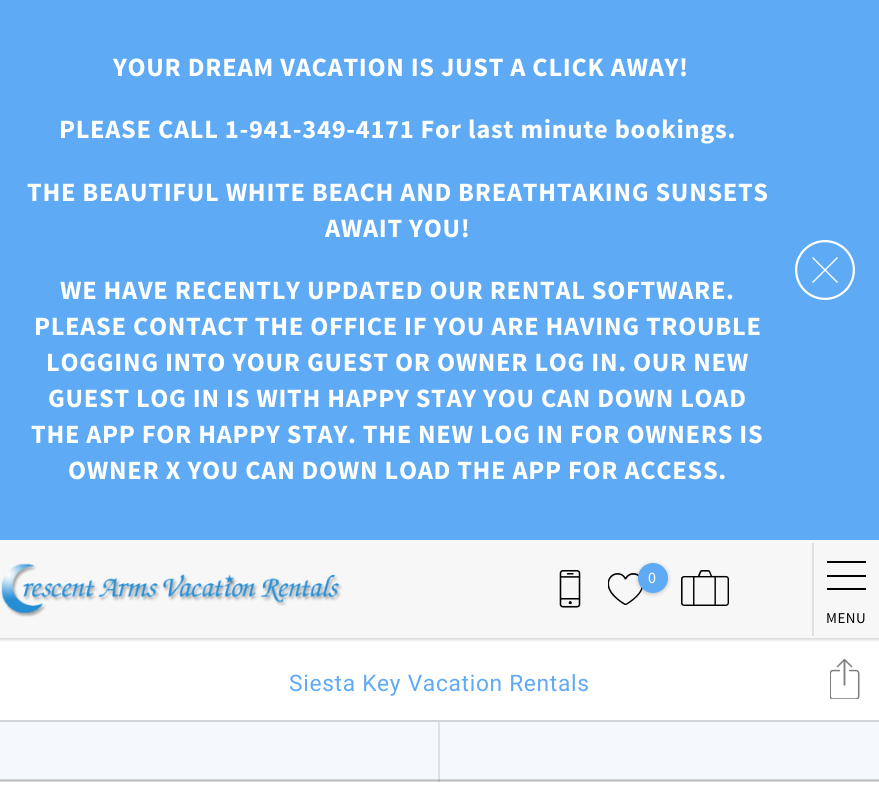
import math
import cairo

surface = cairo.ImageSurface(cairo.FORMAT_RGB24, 879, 793)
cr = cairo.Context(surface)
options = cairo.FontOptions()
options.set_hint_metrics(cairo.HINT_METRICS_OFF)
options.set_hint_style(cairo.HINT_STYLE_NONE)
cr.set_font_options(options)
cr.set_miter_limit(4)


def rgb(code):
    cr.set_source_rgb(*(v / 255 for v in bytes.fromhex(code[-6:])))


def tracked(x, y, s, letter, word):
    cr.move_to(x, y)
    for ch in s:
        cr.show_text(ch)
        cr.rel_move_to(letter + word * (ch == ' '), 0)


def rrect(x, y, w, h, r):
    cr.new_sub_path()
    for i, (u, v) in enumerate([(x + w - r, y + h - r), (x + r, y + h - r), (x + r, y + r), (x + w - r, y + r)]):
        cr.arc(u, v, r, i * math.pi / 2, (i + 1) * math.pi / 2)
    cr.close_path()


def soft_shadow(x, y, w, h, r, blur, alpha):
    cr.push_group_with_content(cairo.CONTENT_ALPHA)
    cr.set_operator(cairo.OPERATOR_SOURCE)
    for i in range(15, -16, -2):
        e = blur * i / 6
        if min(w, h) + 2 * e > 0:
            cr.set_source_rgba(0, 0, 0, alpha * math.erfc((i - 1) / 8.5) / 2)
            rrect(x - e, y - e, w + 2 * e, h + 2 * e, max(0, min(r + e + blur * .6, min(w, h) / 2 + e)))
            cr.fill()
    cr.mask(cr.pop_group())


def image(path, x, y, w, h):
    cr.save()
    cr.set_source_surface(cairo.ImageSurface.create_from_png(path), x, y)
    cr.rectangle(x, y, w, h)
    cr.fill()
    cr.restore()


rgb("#ffffff")
cr.paint()
for x, y, w, h, color in [
    (0, 781, 879, 1, "#dbdbdb"),
    (438, 781, 2, 1, "#c7c7c7"),
    (0, 780, 879, 1, "#bdbdbd"),
    (438, 780, 2, 1, "#acacac"),
]:
    rgb(color)
    cr.rectangle(x, y, w, h)
    cr.fill()
rgb("#111111")
soft_shadow(0, 542, 879, 97, 0, 2, 0.25)
rgb("#5faaf5")
cr.rectangle(0, 0, 879, 540)
cr.fill()
image("img/1.png", 795, 240, 60, 60)
rgb("#f7f7f7")
cr.rectangle(0, 540, 879, 98)
cr.fill()
image("img/2.png", 1, 563, 341, 54)
image("img/3.png", 559, 570, 22, 38)
image("img/4.png", 608, 573, 35, 32)
rgb("#111111")
soft_shadow(638, 564, 30, 30, 15, 2, 0.25)
rgb("#5faaf5")
cr.arc(653, 578, 15, 0, 2 * math.pi)
cr.fill()
image("img/5.png", 681, 570, 48, 36)
image("img/6.png", 830, 659, 30, 40)
for x, y, w, h, color in [
    (812, 543, 2, 93, "#e0e0e0"),
    (827, 575, 39, 2, "#000000"),
    (827, 561, 39, 2, "#000000"),
    (827, 588, 39, 2, "#000000"),
    (0, 722, 879, 57, "#f5f8fc"),
    (438, 722, 2, 58, "#dee1e5"),
    (0, 779, 879, 1, "#d3d5d9"),
    (438, 779, 2, 1, "#c0c1c5"),
    (0, 720, 879, 2, "#d3d5d9"),
]:
    rgb(color)
    cr.rectangle(x, y, w, h)
    cr.fill()
cr.select_font_face("Source Sans Pro", cairo.FONT_SLANT_NORMAL, cairo.FONT_WEIGHT_BOLD)
cr.set_font_size(26.4)
rgb("#ffffff")
for x, y, s in [
    (113, 76, "YOUR DREAM VACATION IS JUST A CLICK AWAY!"),
    (59, 138, "PLEASE CALL 1-941-349-4171 For last minute bookings."),
    (27, 201, "THE BEAUTIFUL WHITE BEACH AND BREATHTAKING SUNSETS"),
    (325, 237, "AWAIT YOU!"),
    (60, 299, "WE HAVE RECENTLY UPDATED OUR RENTAL SOFTWARE."),
    (34, 335, "PLEASE CONTACT THE OFFICE IF YOU ARE HAVING TROUBLE"),
    (46, 371, "LOGGING INTO YOUR GUEST OR OWNER LOG IN. OUR NEW"),
    (48, 407, "GUEST LOG IN IS WITH HAPPY STAY YOU CAN DOWN LOAD"),
    (31, 443, "THE APP FOR HAPPY STAY. THE NEW LOG IN FOR OWNERS IS"),
    (68, 479, "OWNER X YOU CAN DOWN LOAD THE APP FOR ACCESS."),
]:
    tracked(x, y, s, 0.72, 0)
cr.select_font_face("Source Sans Pro")
cr.set_font_size(16)
tracked(648, 583, "0", 0.72, 0)
cr.set_font_size(15)
rgb("#000000")
tracked(826, 623, "MENU", 0.5, 0)
cr.select_font_face("Roboto")
cr.set_font_size(22.75)
rgb("#5faaf5")
tracked(289, 691, "Siesta Key Vacation Rentals", 0.7, 0)
surface.write_to_png("page.png")
